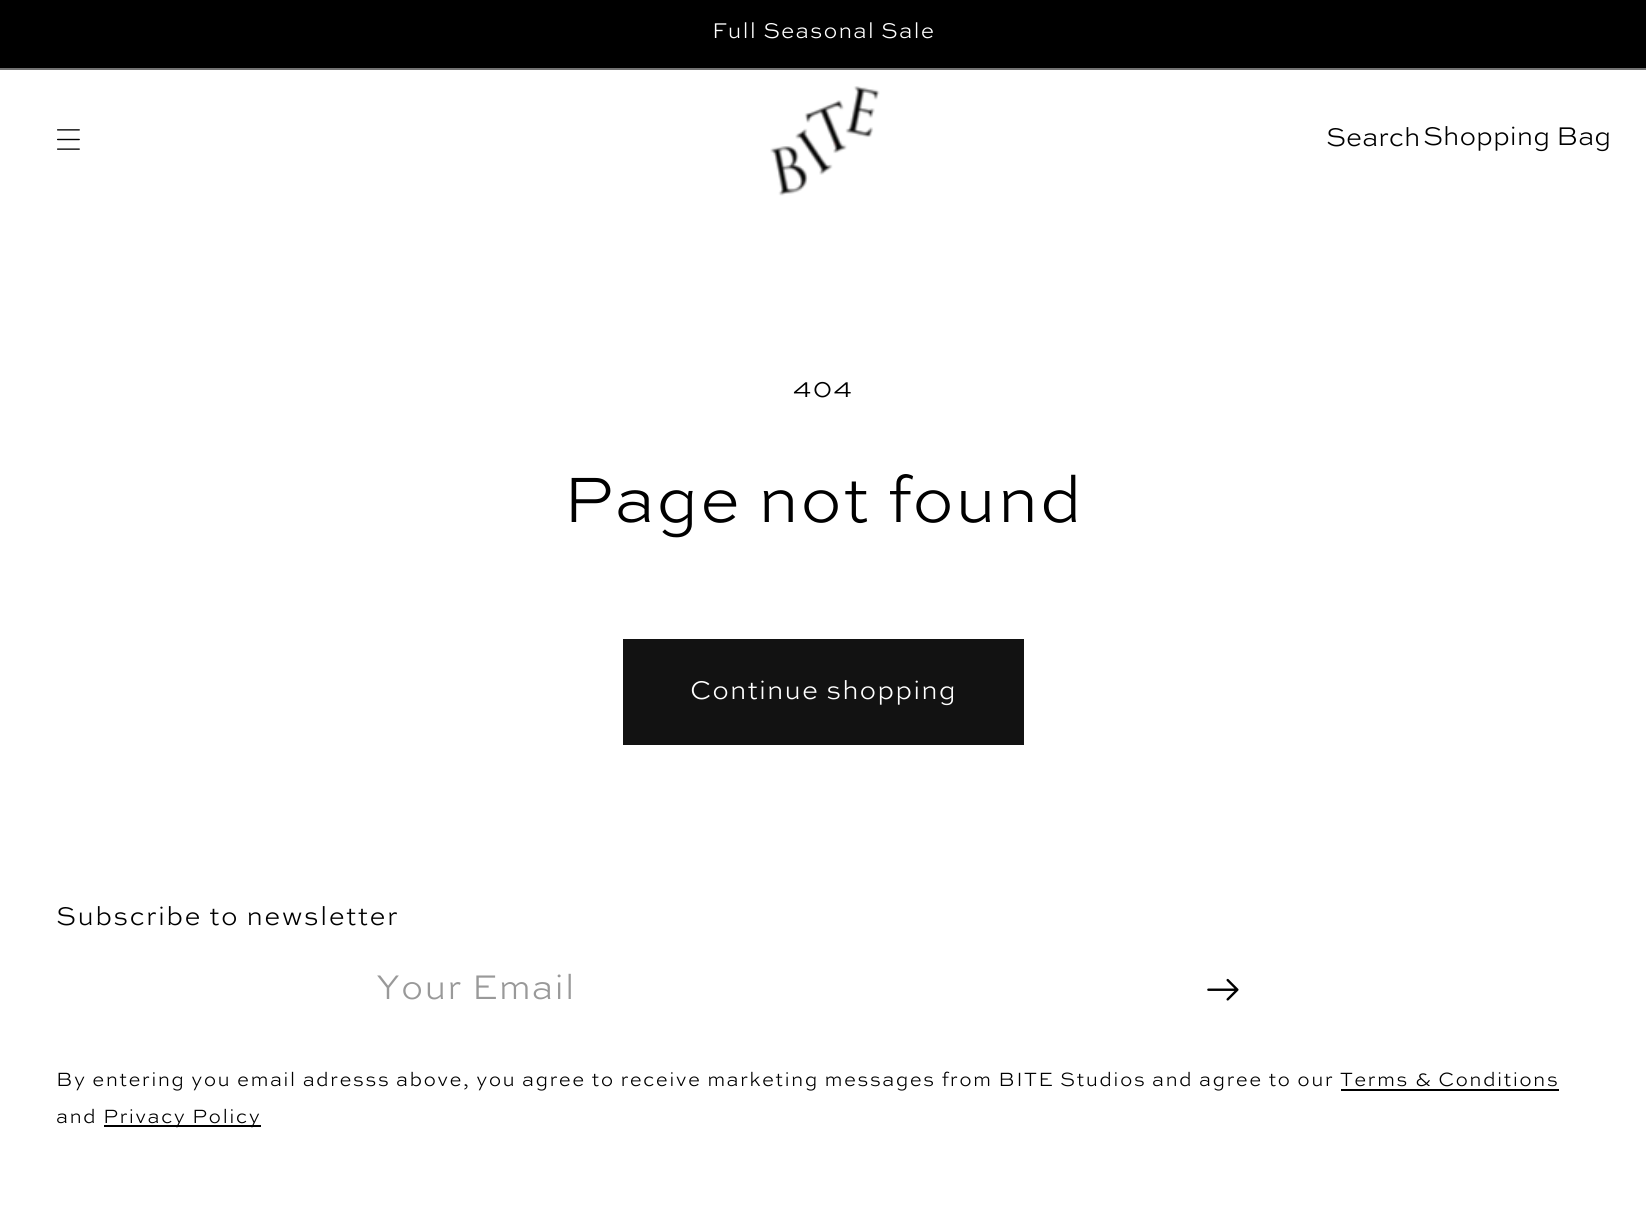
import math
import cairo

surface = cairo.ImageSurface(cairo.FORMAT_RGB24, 1646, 1229)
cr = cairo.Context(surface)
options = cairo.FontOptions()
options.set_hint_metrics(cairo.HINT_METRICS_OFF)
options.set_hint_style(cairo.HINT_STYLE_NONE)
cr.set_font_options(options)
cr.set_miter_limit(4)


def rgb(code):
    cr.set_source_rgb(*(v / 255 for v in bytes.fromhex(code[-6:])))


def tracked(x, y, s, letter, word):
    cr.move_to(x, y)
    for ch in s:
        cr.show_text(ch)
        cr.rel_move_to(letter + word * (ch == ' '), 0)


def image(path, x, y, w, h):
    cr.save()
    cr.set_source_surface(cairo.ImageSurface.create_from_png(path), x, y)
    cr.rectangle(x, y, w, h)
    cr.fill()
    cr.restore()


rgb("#ffffff")
cr.paint()
rgb("#000000")
cr.rectangle(0, 0, 1646, 68)
cr.fill()
rgb("#727272")
cr.rectangle(0, 68, 1646, 2)
cr.fill()
image("img/1.png", 57, 129, 23, 21)
image("img/2.png", 770, 86, 110, 110)
rgb("#121212")
cr.rectangle(623, 639, 401, 106)
cr.fill()
image("img/3.png", 1207, 978, 32, 23)
rgb("#000000")
cr.rectangle(1341, 1089, 218, 2)
cr.fill()
cr.rectangle(104, 1125, 157, 2)
cr.fill()
cr.select_font_face("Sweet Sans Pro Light")
cr.set_font_size(22.5)
rgb("#ffffff")
tracked(712, 38, "Full Seasonal Sale", 1.1, 0)
cr.set_font_size(27)
rgb("#000000")
cr.move_to(1326, 146)
cr.show_text("Search")
cr.move_to(1423, 145)
cr.show_text("Shopping Bag")
tracked(793, 397, "404", 1.35, 0)
cr.set_font_size(67.5)
tracked(563, 522, "Page not found", 1.35, 0)
cr.set_font_size(27)
rgb("#ffffff")
tracked(690, 699, "Continue shopping", 1.1, 0)
rgb("#000000")
tracked(56, 925, "Subscribe to newsletter", 1.35, 0)
cr.set_font_size(36)
rgb("#999999")
tracked(376, 999, "Your Email", 1.1, 0)
cr.set_font_size(20.25)
rgb("#000000")
for x, y, s in [
    (56, 1086, "By entering you email adresss above, you agree to receive marketing messages from BITE Studios and agree to our Terms & Conditions"),
    (56, 1123, "and"),
    (103, 1123, "Privacy Policy"),
]:
    tracked(x, y, s, 1.35, 0)
surface.write_to_png("page.png")
